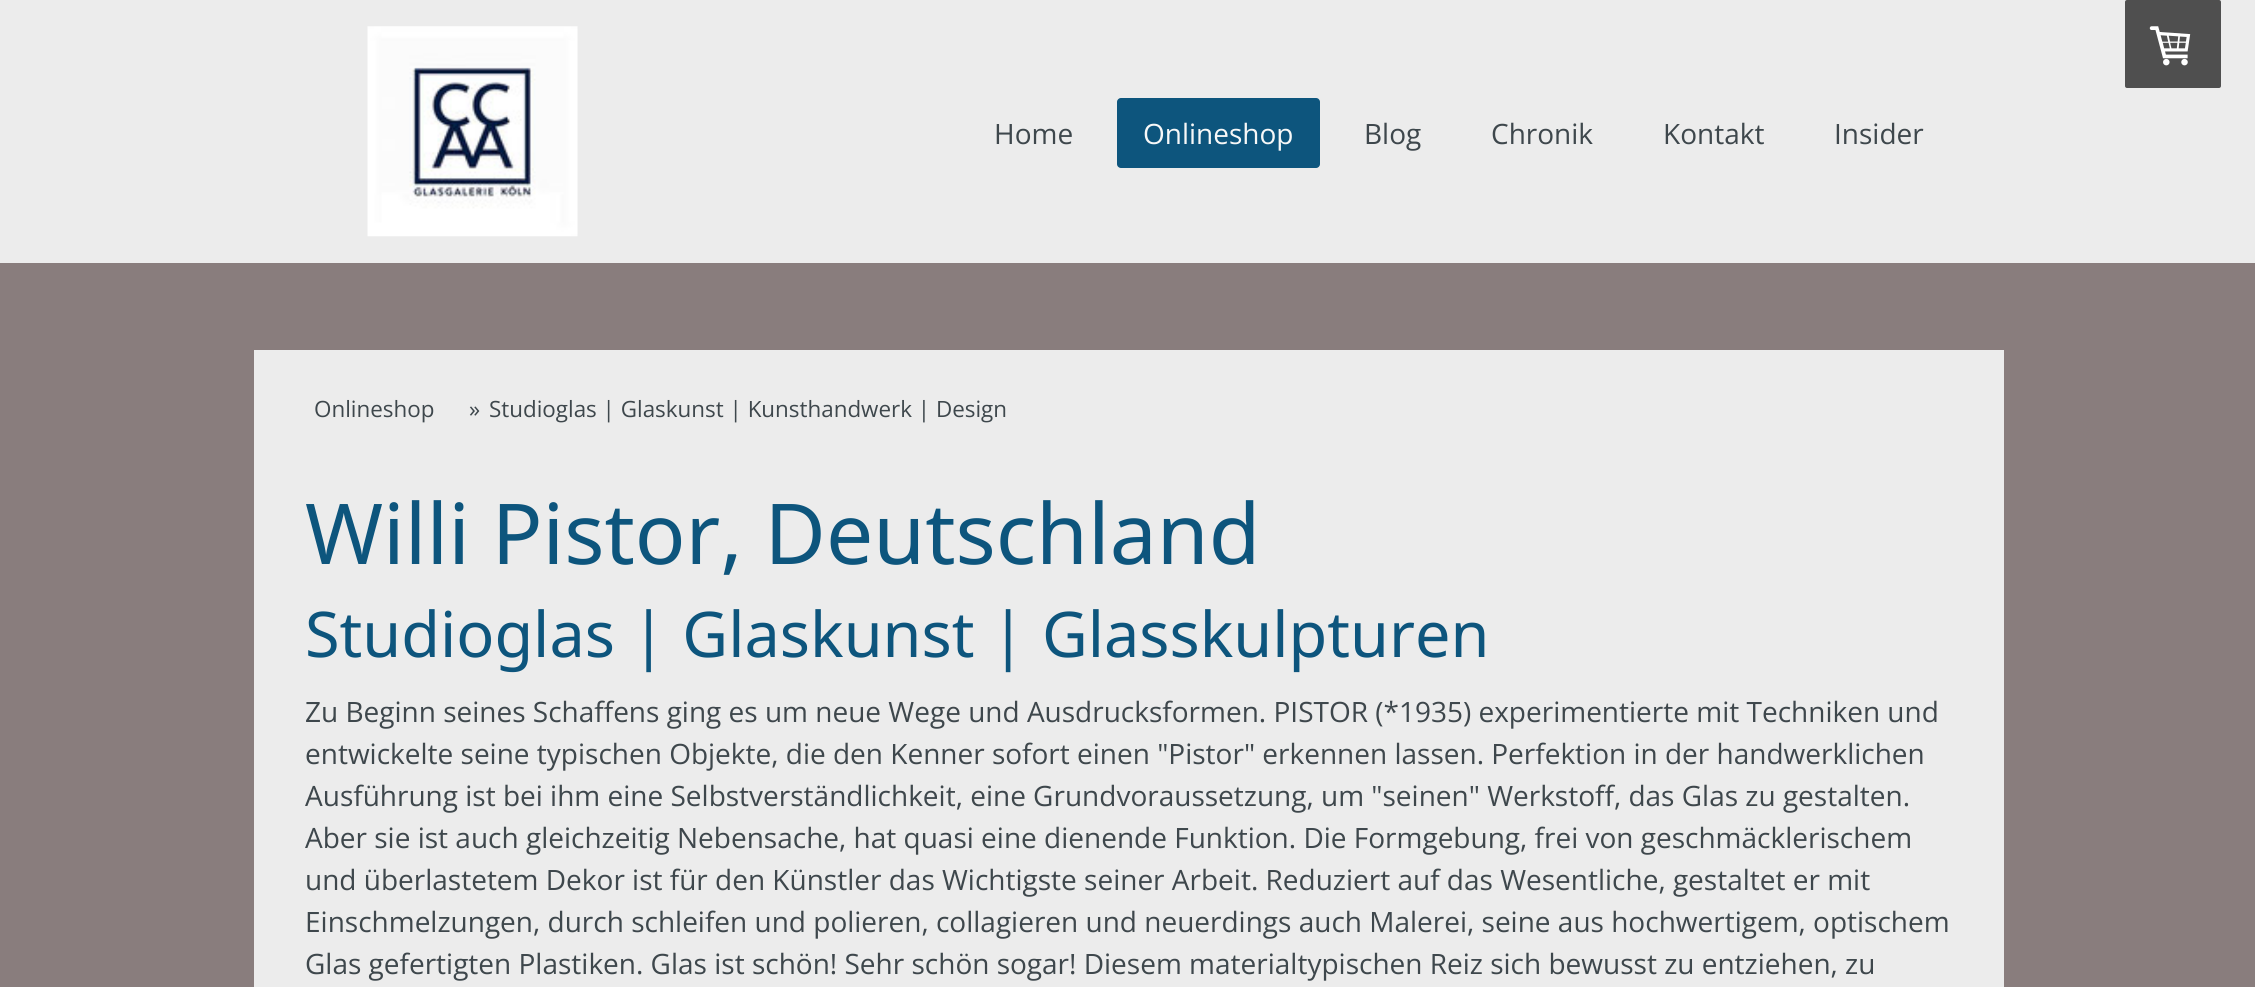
import math
import cairo

surface = cairo.ImageSurface(cairo.FORMAT_RGB24, 2255, 987)
cr = cairo.Context(surface)
options = cairo.FontOptions()
options.set_hint_metrics(cairo.HINT_METRICS_OFF)
options.set_hint_style(cairo.HINT_STYLE_NONE)
cr.set_font_options(options)
cr.set_miter_limit(4)


def rgb(code):
    cr.set_source_rgb(*(v / 255 for v in bytes.fromhex(code[-6:])))


def rrect(x, y, w, h, r):
    cr.new_sub_path()
    for i, (u, v) in enumerate([(x + w - r, y + h - r), (x + r, y + h - r), (x + r, y + r), (x + w - r, y + r)]):
        cr.arc(u, v, r, i * math.pi / 2, (i + 1) * math.pi / 2)
    cr.close_path()


def image(path, x, y, w, h):
    cr.save()
    cr.set_source_surface(cairo.ImageSurface.create_from_png(path), x, y)
    cr.rectangle(x, y, w, h)
    cr.fill()
    cr.restore()


rgb("#897d7d")
cr.paint()
rgb("#ececec")
cr.rectangle(0, 0, 2255, 263)
cr.fill()
rgb("#4f4f4f")
rrect(2125, 0, 96, 88, 2)
cr.fill()
image("img/1.png", 2149, 26, 42, 40)
image("img/2.png", 367, 26, 211, 211)
rgb("#0d557d")
rrect(1117, 98, 203, 70, 4)
cr.fill()
rgb("#ececec")
cr.rectangle(254, 350, 1750, 637)
cr.fill()
cr.select_font_face("Open Sans")
cr.set_font_size(28)
rgb("#3e474c")
cr.move_to(994, 144)
cr.show_text("Home")
rgb("#f7f8f8")
cr.move_to(1143, 144)
cr.show_text("Onlineshop")
rgb("#3e474c")
for x, y, s in [
    (1364, 144, "Blog"),
    (1491, 144, "Chronik"),
    (1663, 144, "Kontakt"),
    (1834, 144, "Insider"),
]:
    cr.move_to(x, y)
    cr.show_text(s)
cr.set_font_size(22.4)
for x, y, s in [
    (314, 417, "Onlineshop"),
    (469, 417, "»"),
    (489, 417, "Studioglas | Glaskunst | Kunsthandwerk | Design"),
]:
    cr.move_to(x, y)
    cr.show_text(s)
cr.select_font_face("Noto Sans")
cr.set_font_size(84)
rgb("#0d557d")
cr.move_to(305, 564)
cr.show_text("Willi Pistor, Deutschland")
cr.set_font_size(63)
cr.move_to(305, 657)
cr.show_text("Studioglas | Glaskunst | Glasskulpturen")
cr.select_font_face("Open Sans")
cr.set_font_size(28)
rgb("#3e474c")
for x, y, s in [
    (305, 722, "Zu Beginn seines Schaffens ging es um neue Wege und Ausdrucksformen. PISTOR (*1935) experimentierte mit Techniken und"),
    (305, 764, "entwickelte seine typischen Objekte, die den Kenner sofort einen \"Pistor\" erkennen lassen. Perfektion in der handwerklichen"),
    (305, 806, "Ausführung ist bei ihm eine Selbstverständlichkeit, eine Grundvoraussetzung, um \"seinen\" Werkstoff, das Glas zu gestalten."),
    (305, 848, "Aber sie ist auch gleichzeitig Nebensache, hat quasi eine dienende Funktion. Die Formgebung, frei von geschmäcklerischem"),
    (305, 890, "und überlastetem Dekor ist für den Künstler das Wichtigste seiner Arbeit. Reduziert auf das Wesentliche, gestaltet er mit"),
    (305, 932, "Einschmelzungen, durch schleifen und polieren, collagieren und neuerdings auch Malerei, seine aus hochwertigem, optischem"),
    (305, 974, "Glas gefertigten Plastiken. Glas ist schön! Sehr schön sogar! Diesem materialtypischen Reiz sich bewusst zu entziehen, zu"),
]:
    cr.move_to(x, y)
    cr.show_text(s)
surface.write_to_png("page.png")
